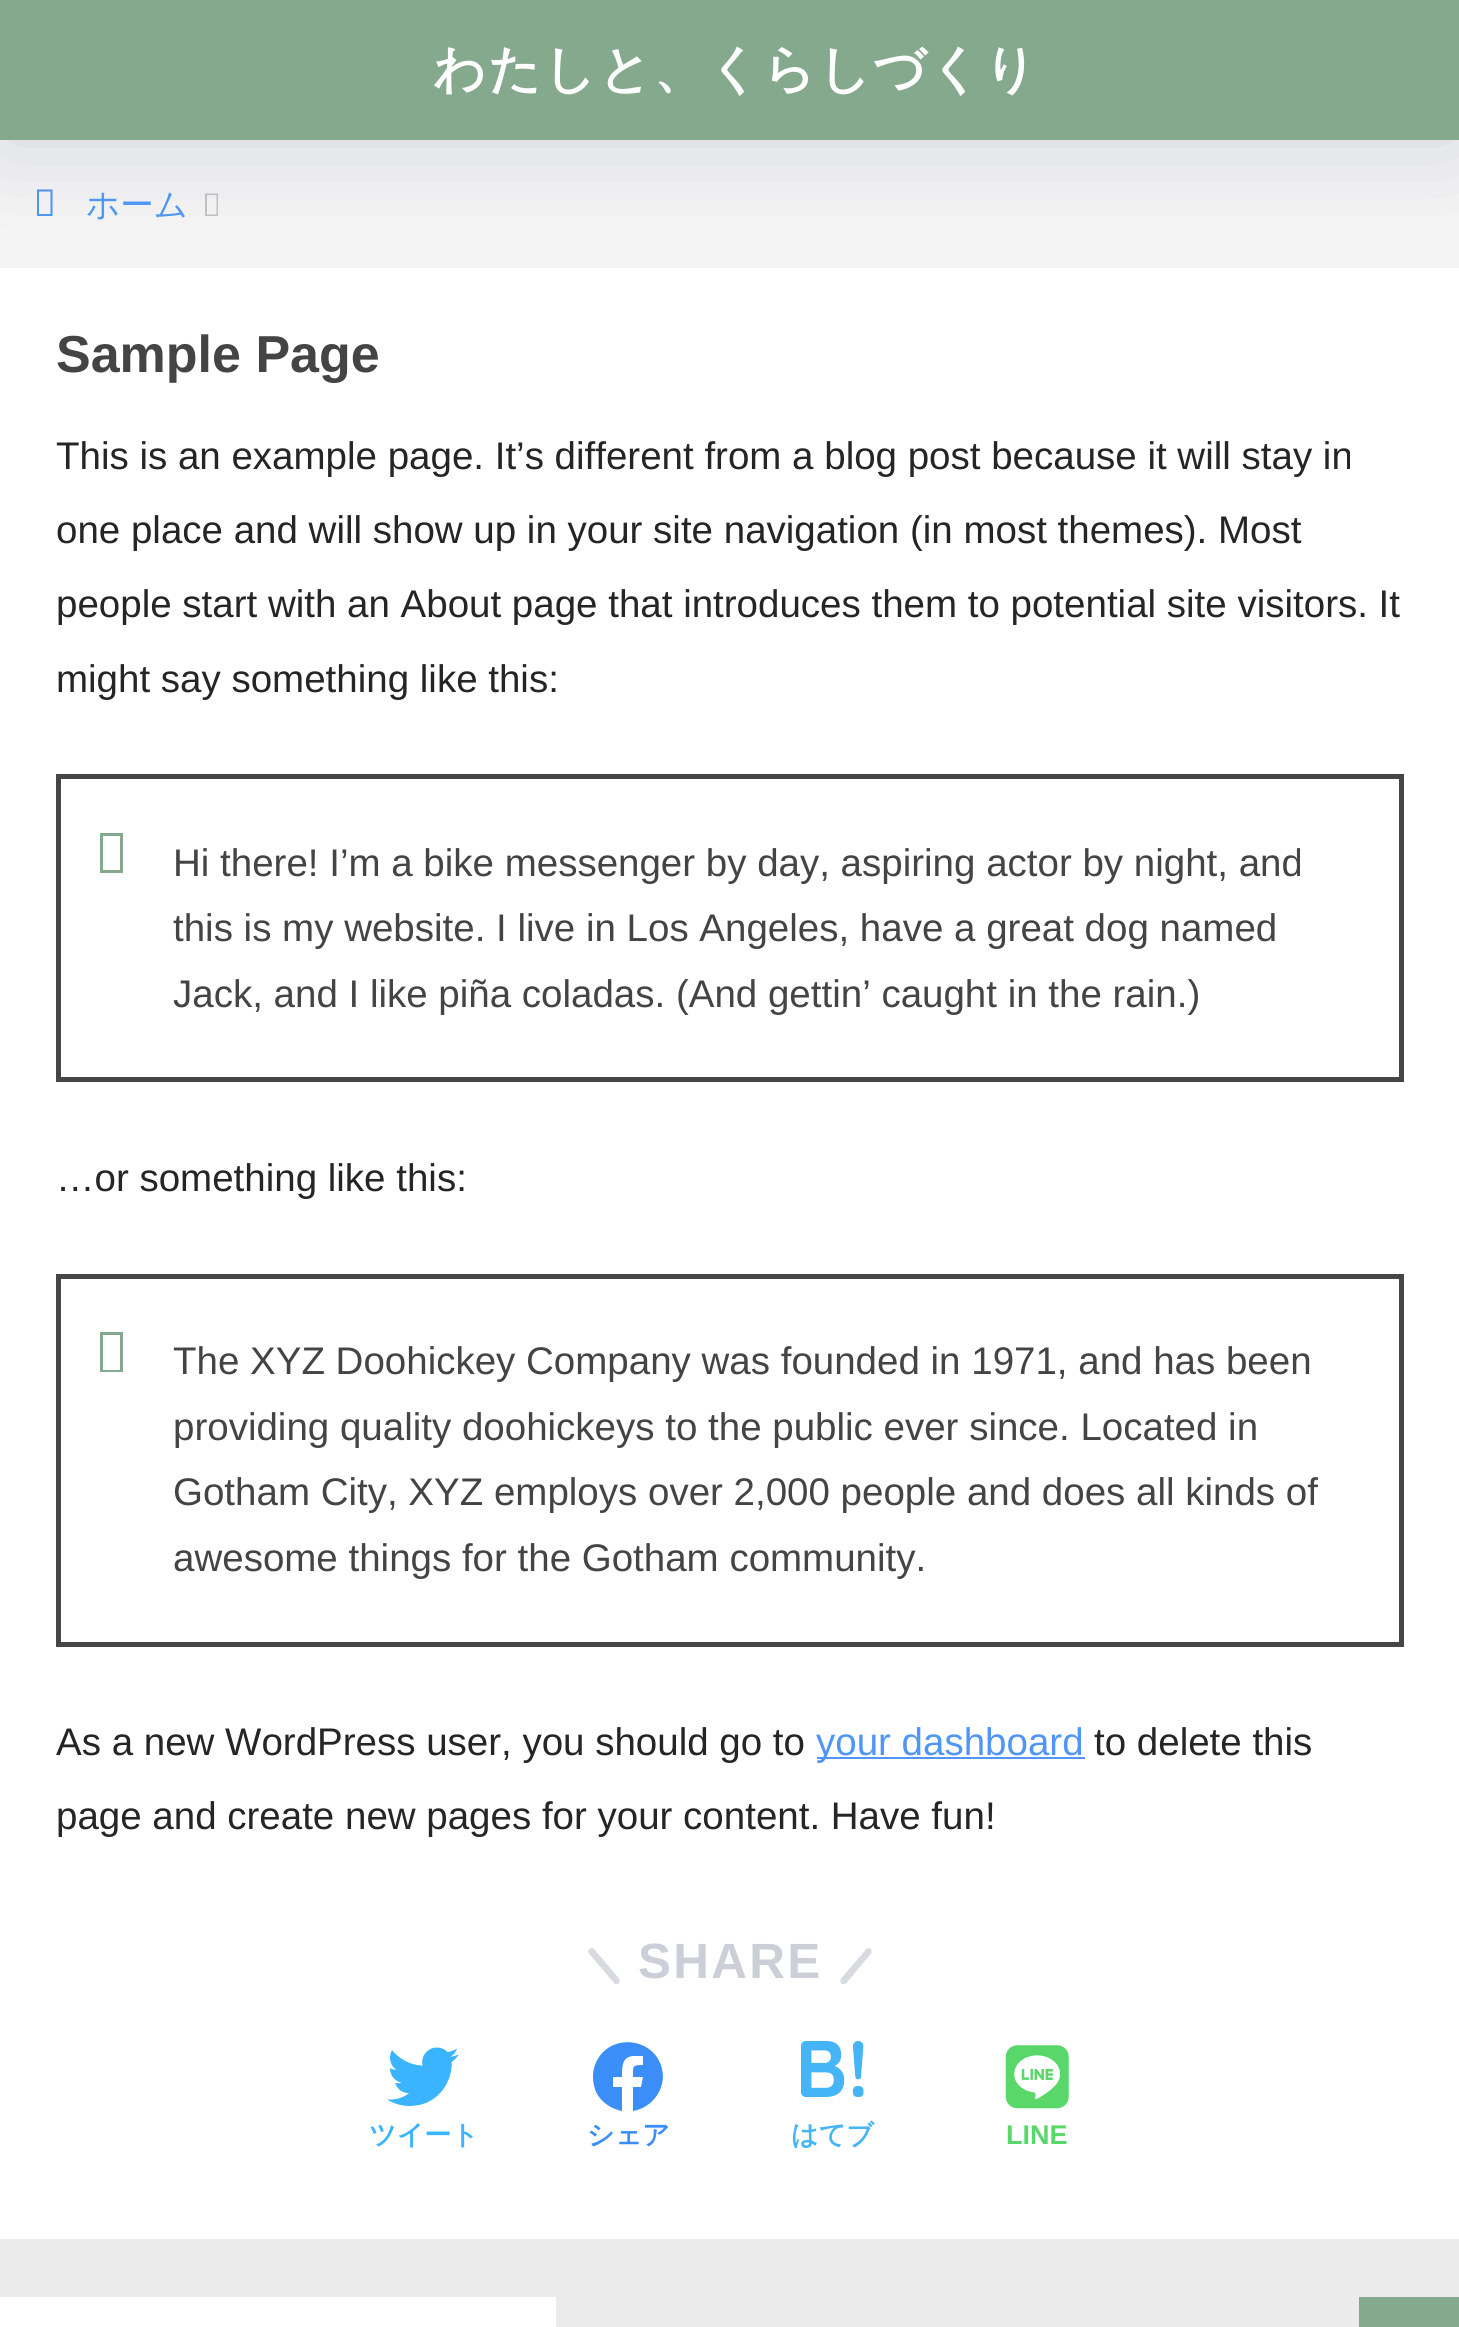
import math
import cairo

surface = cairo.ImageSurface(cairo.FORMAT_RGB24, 1459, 2327)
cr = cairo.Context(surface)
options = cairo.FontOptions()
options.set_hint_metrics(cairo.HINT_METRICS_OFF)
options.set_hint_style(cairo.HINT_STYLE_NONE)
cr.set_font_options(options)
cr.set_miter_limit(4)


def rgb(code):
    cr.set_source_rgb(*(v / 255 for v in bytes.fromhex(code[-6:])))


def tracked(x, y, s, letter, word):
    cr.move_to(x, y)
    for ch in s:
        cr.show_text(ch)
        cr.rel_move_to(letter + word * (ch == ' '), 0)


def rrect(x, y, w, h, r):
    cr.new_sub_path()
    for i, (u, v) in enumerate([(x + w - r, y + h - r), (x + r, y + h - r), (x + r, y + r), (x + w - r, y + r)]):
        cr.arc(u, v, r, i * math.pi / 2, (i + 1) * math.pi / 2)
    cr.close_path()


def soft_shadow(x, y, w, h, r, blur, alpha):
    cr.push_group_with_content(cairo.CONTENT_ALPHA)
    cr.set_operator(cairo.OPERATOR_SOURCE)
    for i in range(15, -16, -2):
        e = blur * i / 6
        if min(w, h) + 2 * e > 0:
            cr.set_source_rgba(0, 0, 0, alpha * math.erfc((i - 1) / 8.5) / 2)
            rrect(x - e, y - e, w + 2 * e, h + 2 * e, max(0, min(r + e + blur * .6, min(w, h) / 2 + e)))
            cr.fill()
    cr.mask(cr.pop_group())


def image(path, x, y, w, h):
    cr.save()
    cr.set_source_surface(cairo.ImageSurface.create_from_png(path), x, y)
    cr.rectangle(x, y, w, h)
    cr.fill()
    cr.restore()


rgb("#ebebeb")
cr.paint()
rgb("#ffffff")
cr.rectangle(0, 268, 1459, 1971)
cr.fill()
rgb("#f4f4f4")
cr.rectangle(0, 140, 1459, 128)
cr.fill()
rgb("#4f96f6")
cr.new_path()
cr.move_to(37, 216)
cr.line_to(37, 189.5)
cr.line_to(52.5, 189.5)
cr.line_to(52.5, 216)
cr.close_path()
cr.move_to(39, 214)
cr.line_to(50.5, 214)
cr.line_to(50.5, 191.5)
cr.line_to(39, 191.5)
cr.close_path()
cr.fill()
rgb("#c3c3c3")
cr.new_path()
cr.move_to(205, 216)
cr.line_to(205, 193.5)
cr.line_to(218, 193.5)
cr.line_to(218, 216)
cr.close_path()
cr.move_to(207, 214.5)
cr.line_to(216.5, 214.5)
cr.line_to(216.5, 195)
cr.line_to(207, 195)
cr.close_path()
cr.fill()
rgb("#000c42")
soft_shadow(0, 0, 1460, 140, 0, 50.5, 0.15)
rgb("#84a98c")
cr.rectangle(0, 0, 1459, 140)
cr.fill()
cr.rectangle(58.5, 776.5, 1343, 303)
rgb("#464646")
cr.set_line_width(5)
cr.stroke()
rgb("#84a98c")
cr.new_path()
cr.move_to(100, 873)
cr.line_to(100, 833)
cr.line_to(123, 833)
cr.line_to(123, 873)
cr.close_path()
cr.move_to(103, 870)
cr.line_to(120, 870)
cr.line_to(120, 836)
cr.line_to(103, 836)
cr.close_path()
cr.fill()
cr.rectangle(58.5, 1276.5, 1343, 368)
rgb("#464646")
cr.stroke()
rgb("#84a98c")
cr.new_path()
cr.move_to(100, 1372)
cr.line_to(100, 1332)
cr.line_to(123, 1332)
cr.line_to(123, 1372)
cr.close_path()
cr.move_to(103, 1370)
cr.line_to(120, 1370)
cr.line_to(120, 1335)
cr.line_to(103, 1335)
cr.close_path()
cr.fill()
rgb("#4f96f6")
cr.rectangle(817, 1757, 268, 2)
cr.fill()
rgb("#d8dae1")
cr.new_path()
cr.move_to(594.5, 1949.5)
cr.line_to(619, 1978.5)
cr.curve_to(620, 1980, 620, 1982, 618.5, 1983.5)
cr.curve_to(617, 1984.5, 615, 1984.5, 614, 1983)
cr.line_to(589, 1953.5)
cr.curve_to(588, 1952, 588, 1950, 589.5, 1949)
cr.curve_to(591, 1947.5, 593, 1948, 594.5, 1949.5)
cr.close_path()
cr.fill()
cr.new_path()
cr.move_to(841, 1978.5)
cr.line_to(866, 1949.5)
cr.curve_to(867, 1948, 869, 1947.5, 870.5, 1949)
cr.curve_to(872, 1950, 872, 1952, 871, 1953.5)
cr.line_to(846.5, 1983)
cr.curve_to(845, 1984.5, 843, 1984.5, 841.5, 1983.5)
cr.curve_to(840, 1982, 840, 1980, 841, 1978.5)
cr.close_path()
cr.fill()
image("img/1.png", 387, 2047, 72, 59)
rgb("#3b8df7")
cr.new_path()
cr.move_to(663, 2077)
cr.curve_to(662, 2036, 605, 2029, 594, 2068)
cr.curve_to(592, 2076, 593, 2084, 596, 2092)
cr.curve_to(601, 2102, 611, 2109, 622, 2111)
cr.line_to(622, 2087)
cr.line_to(613, 2087)
cr.line_to(613, 2077)
cr.line_to(622, 2077)
cr.curve_to(622, 2065, 622, 2055, 637, 2056)
cr.line_to(643, 2056)
cr.line_to(643, 2065)
cr.curve_to(632, 2065, 633, 2066, 633, 2077)
cr.line_to(643, 2077)
cr.line_to(641, 2087)
cr.line_to(633, 2087)
cr.line_to(633, 2111)
cr.curve_to(650, 2108, 662, 2094, 663, 2077)
cr.close_path()
cr.fill()
image("img/2.png", 1005, 2045, 64, 64)
rgb("#ffffff")
cr.rectangle(0, 2297, 556, 30)
cr.fill()
rgb("#84a98c")
cr.rectangle(1359, 2297, 100, 30)
cr.fill()
cr.select_font_face("WenQuanYi Zen Hei", cairo.FONT_SLANT_NORMAL, cairo.FONT_WEIGHT_BOLD)
cr.set_font_size(51.75)
rgb("#ffffff")
tracked(433, 87, "わたしと、くらしづくり", 2.25, 0)
cr.select_font_face("WenQuanYi Zen Hei Medium")
cr.set_font_size(33.5)
rgb("#4f96f6")
cr.move_to(86, 216)
cr.show_text("ホーム")
cr.select_font_face("Liberation Sans", cairo.FONT_SLANT_NORMAL, cairo.FONT_WEIGHT_BOLD)
cr.set_font_size(52)
rgb("#444444")
cr.move_to(56, 372)
cr.show_text("Sample Page")
cr.select_font_face("Liberation Sans")
cr.set_font_size(38.5)
rgb("#252525")
for x, y, s in [
    (56, 469, "This is an example page. It’s different from a blog post because it will stay in"),
    (56, 543, "one place and will show up in your site navigation (in most themes). Most"),
    (56, 617, "people start with an About page that introduces them to potential site visitors. It"),
    (56, 692, "might say something like this:"),
]:
    cr.move_to(x, y)
    cr.show_text(s)
rgb("#444444")
for x, y, s in [
    (173, 876, "Hi there! I’m a bike messenger by day, aspiring actor by night, and"),
    (173, 941, "this is my website. I live in Los Angeles, have a great dog named"),
    (173, 1007, "Jack, and I like piña coladas. (And gettin’ caught in the rain.)"),
]:
    cr.move_to(x, y)
    cr.show_text(s)
rgb("#252525")
cr.move_to(56, 1191)
cr.show_text("…or something like this:")
rgb("#444444")
for x, y, s in [
    (173, 1374, "The XYZ Doohickey Company was founded in 1971, and has been"),
    (173, 1440, "providing quality doohickeys to the public ever since. Located in"),
    (173, 1505, "Gotham City, XYZ employs over 2,000 people and does all kinds of"),
    (173, 1571, "awesome things for the Gotham community."),
]:
    cr.move_to(x, y)
    cr.show_text(s)
rgb("#252525")
cr.move_to(56, 1755)
cr.show_text("As a new WordPress user, you should go to")
rgb("#4f96f6")
cr.move_to(816, 1755)
cr.show_text("your dashboard")
rgb("#252525")
cr.move_to(1094, 1755)
cr.show_text("to delete this")
cr.move_to(56, 1829)
cr.show_text("page and create new pages for your content. Have fun!")
cr.select_font_face("Liberation Sans", cairo.FONT_SLANT_NORMAL, cairo.FONT_WEIGHT_BOLD)
cr.set_font_size(49.5)
rgb("#cccfd7")
tracked(638, 1978, "SHARE", 2.25, 0)
cr.select_font_face("WenQuanYi Zen Hei", cairo.FONT_SLANT_NORMAL, cairo.FONT_WEIGHT_BOLD)
cr.set_font_size(27)
rgb("#3ab4ff")
cr.move_to(369, 2144)
cr.show_text("ツイート")
rgb("#3b8df7")
cr.move_to(587, 2144)
cr.show_text("シェア")
cr.select_font_face("Quicksand", cairo.FONT_SLANT_NORMAL, cairo.FONT_WEIGHT_BOLD)
cr.set_font_size(80)
rgb("#45b5f7")
cr.move_to(795, 2097)
cr.show_text("B!")
cr.select_font_face("WenQuanYi Zen Hei", cairo.FONT_SLANT_NORMAL, cairo.FONT_WEIGHT_BOLD)
cr.set_font_size(27)
cr.move_to(791, 2144)
cr.show_text("はてブ")
cr.select_font_face("Liberation Sans", cairo.FONT_SLANT_NORMAL, cairo.FONT_WEIGHT_BOLD)
rgb("#59d869")
cr.move_to(1006, 2144)
cr.show_text("LINE")
surface.write_to_png("page.png")
